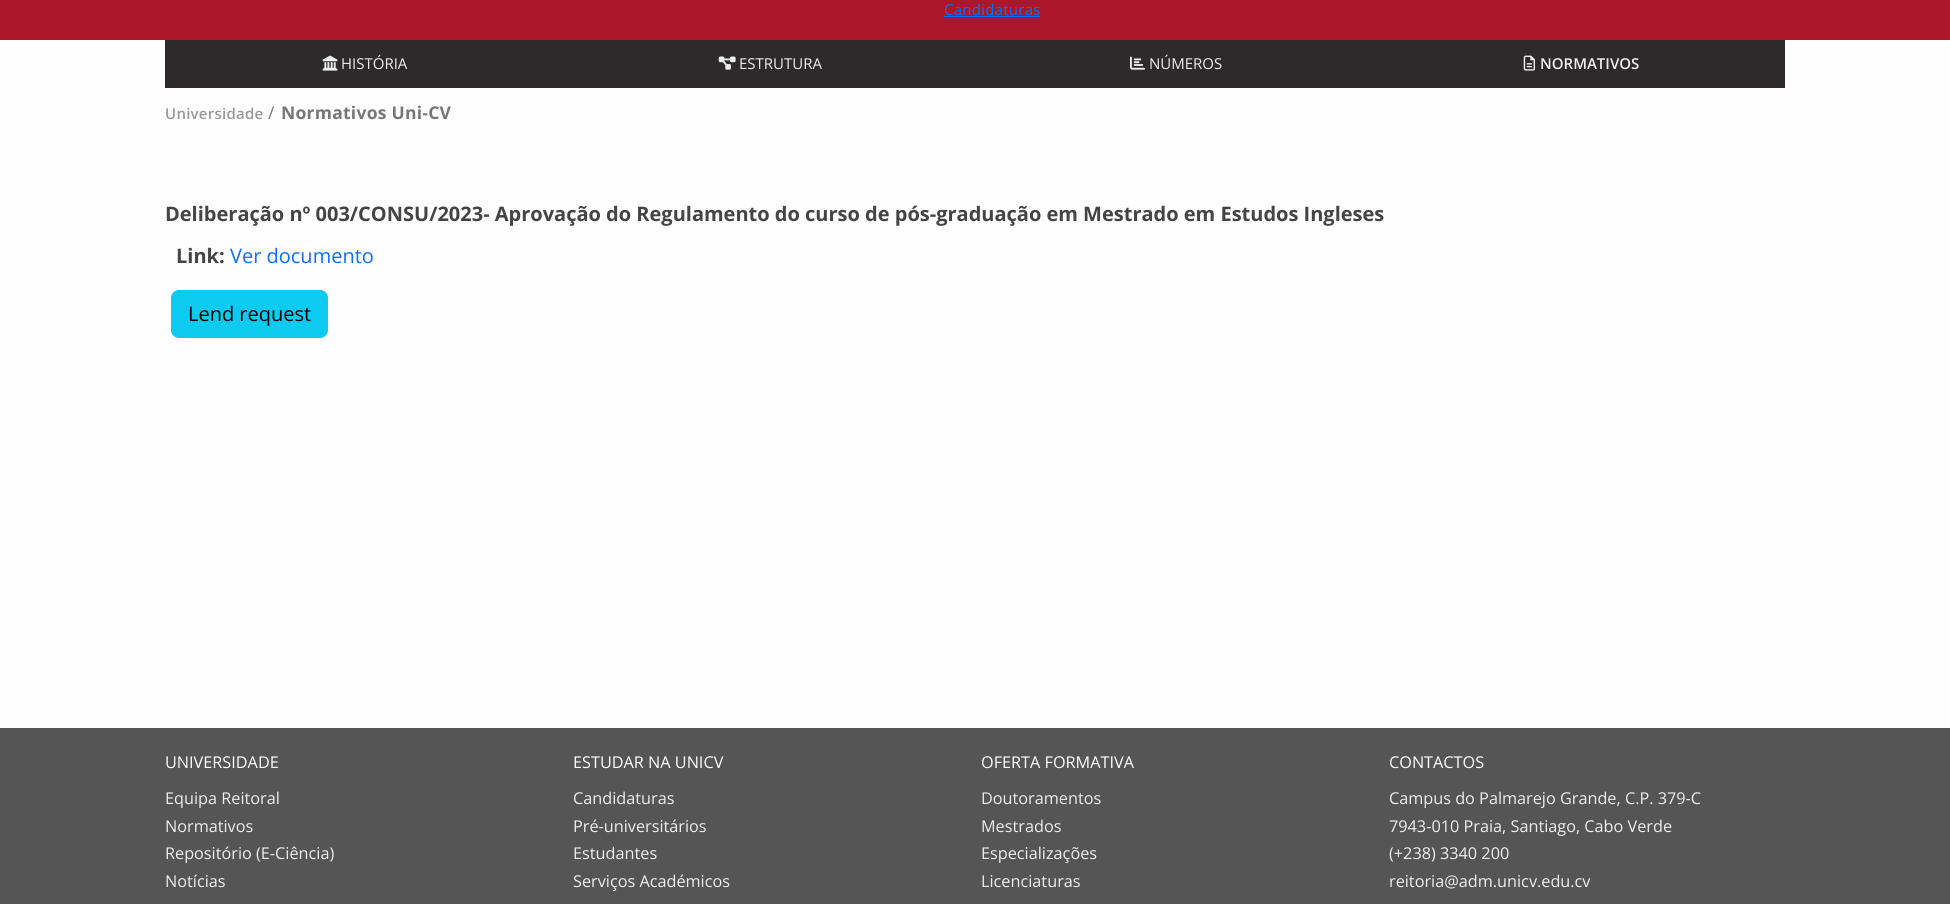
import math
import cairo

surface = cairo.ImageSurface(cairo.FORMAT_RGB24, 1950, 904)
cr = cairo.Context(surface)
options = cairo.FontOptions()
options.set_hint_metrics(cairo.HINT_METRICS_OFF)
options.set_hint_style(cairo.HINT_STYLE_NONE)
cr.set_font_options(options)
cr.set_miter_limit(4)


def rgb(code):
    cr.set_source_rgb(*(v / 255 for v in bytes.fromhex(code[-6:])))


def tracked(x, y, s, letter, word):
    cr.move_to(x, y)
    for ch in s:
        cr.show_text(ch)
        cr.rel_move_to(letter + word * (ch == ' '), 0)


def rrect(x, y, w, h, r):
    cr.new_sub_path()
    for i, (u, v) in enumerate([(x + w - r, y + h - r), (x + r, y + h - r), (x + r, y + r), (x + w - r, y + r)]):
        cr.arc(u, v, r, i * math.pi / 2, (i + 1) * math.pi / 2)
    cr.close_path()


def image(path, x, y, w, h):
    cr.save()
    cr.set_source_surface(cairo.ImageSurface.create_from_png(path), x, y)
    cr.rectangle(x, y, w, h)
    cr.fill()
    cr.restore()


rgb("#ab162b")
cr.paint()
for x, y, w, h, color in [
    (944, 16, 96, 1, "#0d6efd"),
    (0, 40, 1950, 688, "#fefefe"),
    (165, 40, 1620, 48, "#2c2a2b"),
]:
    rgb(color)
    cr.rectangle(x, y, w, h)
    cr.fill()
image("img/1.png", 322, 55, 16, 16)
image("img/2.png", 718, 56, 18, 14)
image("img/3.png", 1130, 56, 15, 14)
image("img/4.png", 1523, 55, 12, 16)
rgb("#0dcaf0")
rrect(171.5, 290.5, 156, 47, 7.5)
cr.fill_preserve()
cr.set_line_width(1)
cr.stroke()
rgb("#555555")
cr.rectangle(0, 728, 1950, 176)
cr.fill()
cr.select_font_face("Open Sans")
cr.set_font_size(15)
rgb("#0d6efd")
tracked(944, 15, "Candidaturas", 0.25, 0)
rgb("#eeeeee")
for x, y, s in [
    (341, 69, "HISTÓRIA"),
    (739, 69, "ESTRUTURA"),
    (1149, 69, "NÚMEROS"),
]:
    cr.move_to(x, y)
    cr.show_text(s)
cr.select_font_face("Open Sans SemiBold")
cr.move_to(1540, 69)
cr.show_text("NORMATIVOS")
rgb("#999999")
tracked(165, 119, "Universidade", 0.25, 0)
cr.select_font_face("Open Sans")
cr.set_font_size(17.5)
rgb("#777777")
tracked(268, 119, "/", 0.25, 0)
cr.select_font_face("Open Sans", cairo.FONT_SLANT_NORMAL, cairo.FONT_WEIGHT_BOLD)
tracked(281, 119, "Normativos Uni-CV", 0.25, 0)
cr.set_font_size(20)
rgb("#444444")
cr.move_to(165, 221)
cr.show_text("Deliberação nº 003/CONSU/2023- Aprovação do Regulamento do curso de pós-graduação em Mestrado em Estudos Ingleses")
cr.move_to(176, 263)
cr.show_text("Link:")
cr.select_font_face("Open Sans")
rgb("#0d6efd")
cr.move_to(230, 263)
cr.show_text("Ver documento")
rgb("#000000")
cr.move_to(188, 321)
cr.show_text("Lend request")
cr.set_font_size(16.25)
rgb("#ffffff")
cr.move_to(165, 768)
cr.show_text("UNIVERSIDADE")
rgb("#eeeeee")
for x, y, s in [
    (165, 804, "Equipa Reitoral"),
    (165, 832, "Normativos"),
    (165, 859, "Repositório (E-Ciência)"),
    (165, 887, "Notícias"),
]:
    cr.move_to(x, y)
    cr.show_text(s)
rgb("#ffffff")
cr.move_to(573, 768)
cr.show_text("ESTUDAR NA UNICV")
rgb("#eeeeee")
for x, y, s in [
    (573, 804, "Candidaturas"),
    (573, 832, "Pré-universitários"),
    (573, 859, "Estudantes"),
    (573, 887, "Serviços Académicos"),
]:
    cr.move_to(x, y)
    cr.show_text(s)
rgb("#ffffff")
cr.move_to(981, 768)
cr.show_text("OFERTA FORMATIVA")
rgb("#eeeeee")
for x, y, s in [
    (981, 804, "Doutoramentos"),
    (981, 832, "Mestrados"),
    (981, 859, "Especializações"),
    (981, 887, "Licenciaturas"),
]:
    cr.move_to(x, y)
    cr.show_text(s)
rgb("#ffffff")
cr.move_to(1389, 768)
cr.show_text("CONTACTOS")
rgb("#eeeeee")
for x, y, s in [
    (1389, 804, "Campus do Palmarejo Grande, C.P. 379-C"),
    (1389, 832, "7943-010 Praia, Santiago, Cabo Verde"),
    (1389, 859, "(+238) 3340 200"),
    (1389, 887, "reitoria@adm.unicv.edu.cv"),
]:
    cr.move_to(x, y)
    cr.show_text(s)
surface.write_to_png("page.png")
